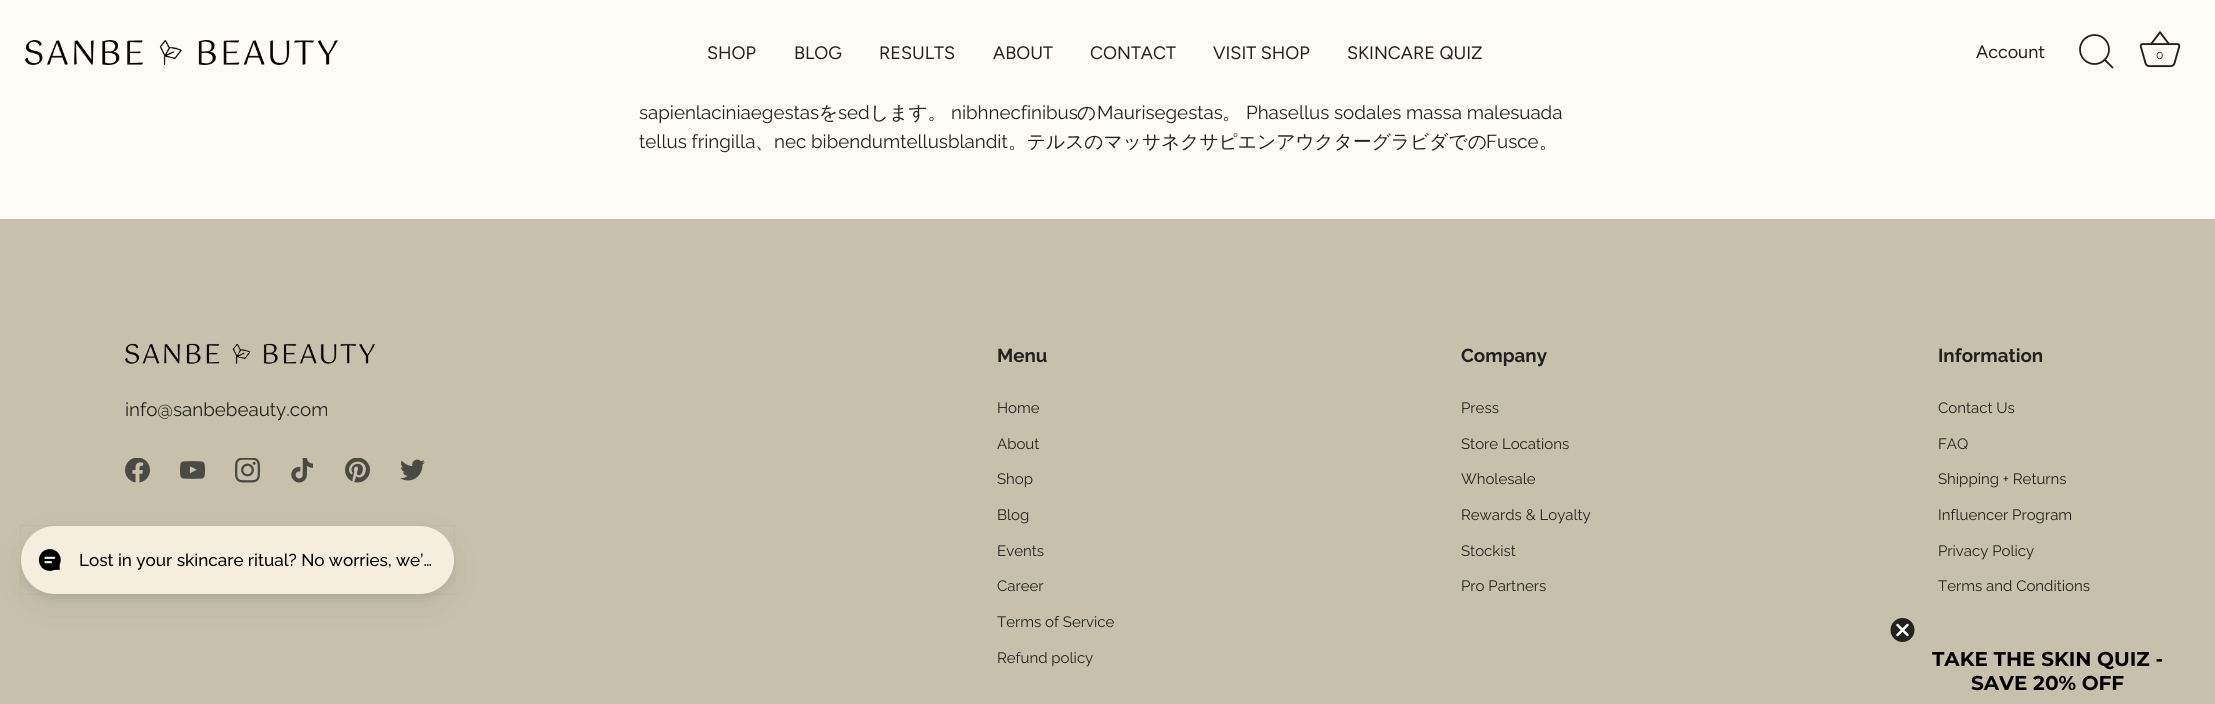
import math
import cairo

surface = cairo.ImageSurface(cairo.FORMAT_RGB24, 2215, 704)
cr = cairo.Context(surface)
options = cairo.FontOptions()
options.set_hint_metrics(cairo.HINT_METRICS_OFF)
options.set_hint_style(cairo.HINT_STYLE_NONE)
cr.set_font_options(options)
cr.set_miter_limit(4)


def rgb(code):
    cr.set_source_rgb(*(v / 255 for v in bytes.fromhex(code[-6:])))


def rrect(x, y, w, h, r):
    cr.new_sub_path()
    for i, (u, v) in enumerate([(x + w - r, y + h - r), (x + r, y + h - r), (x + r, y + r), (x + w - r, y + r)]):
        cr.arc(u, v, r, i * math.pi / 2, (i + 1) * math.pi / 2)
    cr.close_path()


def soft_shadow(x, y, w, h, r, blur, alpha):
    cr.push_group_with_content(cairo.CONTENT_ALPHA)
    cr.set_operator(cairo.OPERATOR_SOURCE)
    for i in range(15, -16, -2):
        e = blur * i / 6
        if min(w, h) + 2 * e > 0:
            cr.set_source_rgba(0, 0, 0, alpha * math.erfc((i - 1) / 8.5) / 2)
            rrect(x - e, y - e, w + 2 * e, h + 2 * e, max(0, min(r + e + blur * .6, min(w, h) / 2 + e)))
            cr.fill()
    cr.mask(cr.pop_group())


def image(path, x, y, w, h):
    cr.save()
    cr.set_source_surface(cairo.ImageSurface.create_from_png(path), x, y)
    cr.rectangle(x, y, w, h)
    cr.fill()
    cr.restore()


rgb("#fffcf7")
cr.paint()
image("img/1.png", 25, 40, 313, 25)
cr.arc(2094.5, 49.5, 14.5, 0, 2 * math.pi)
rgb("#212121")
cr.set_line_width(1.8)
cr.stroke()
cr.new_path()
cr.move_to(2112.5, 67.5)
cr.line_to(2104.5, 59.5)
cr.set_line_cap(cairo.LINE_CAP_ROUND)
cr.set_line_join(cairo.LINE_JOIN_ROUND)
cr.stroke()
image("img/2.png", 2139, 31, 42, 37)
rgb("#c7c1ab")
cr.rectangle(0, 219, 2215, 485)
cr.fill()
image("img/3.png", 125, 343, 250, 21)
image("img/4.png", 125, 458, 25, 25)
image("img/5.png", 180, 461, 25, 18)
image("img/6.png", 235, 458, 25, 25)
image("img/7.png", 291, 458, 22, 25)
image("img/8.png", 345, 458, 25, 25)
image("img/9.png", 400, 459, 25, 22)
rgb("#373f47")
soft_shadow(21, 536, 433, 69, 34.5, 16, 0.08)
soft_shadow(21, 531, 433, 69, 34.5, 2.5, 0.08)
cr.rectangle(20.5, 525.5, 434, 69)
cr.set_source_rgba(0.216, 0.247, 0.278, 0.04)
cr.set_line_width(1)
cr.set_line_cap(cairo.LINE_CAP_BUTT)
cr.set_line_join(cairo.LINE_JOIN_MITER)
cr.stroke()
rgb("#f5eedf")
rrect(21, 526, 433, 68, 34)
cr.fill()
image("img/10.png", 38, 549, 23, 22)
image("img/11.png", 1890, 618, 25, 24)
cr.select_font_face("Figtree")
cr.set_font_size(18)
rgb("#212121")
for x, y, s in [
    (707, 59, "SHOP"),
    (794, 59, "BLOG"),
    (879, 59, "RESULTS"),
    (993, 59, "ABOUT"),
    (1090, 59, "CONTACT"),
    (1213, 59, "VISIT SHOP"),
    (1347, 59, "SKINCARE QUIZ"),
    (1976, 58, "Account"),
]:
    cr.move_to(x, y)
    cr.show_text(s)
cr.select_font_face("Raleway")
cr.set_font_size(12)
cr.move_to(2156, 59)
cr.show_text("0")
cr.set_font_size(18.75)
cr.move_to(639, 119)
cr.show_text("sapienlaciniaegestas")
cr.select_font_face("WenQuanYi Zen Hei Medium")
cr.move_to(819, 119)
cr.show_text("を")
cr.select_font_face("Raleway")
cr.move_to(838, 119)
cr.show_text("sed")
cr.select_font_face("WenQuanYi Zen Hei Medium")
cr.move_to(870, 119)
cr.show_text("します。")
cr.select_font_face("Raleway")
cr.move_to(951, 119)
cr.show_text("nibhnecfinibus")
cr.select_font_face("WenQuanYi Zen Hei Medium")
cr.move_to(1077, 119)
cr.show_text("の")
cr.select_font_face("Raleway")
cr.move_to(1097, 119)
cr.show_text("Maurisegestas")
cr.select_font_face("WenQuanYi Zen Hei Medium")
cr.move_to(1222, 119)
cr.show_text("。")
cr.select_font_face("Raleway")
cr.move_to(1246, 119)
cr.show_text("Phasellus sodales massa malesuada")
cr.move_to(639, 148)
cr.show_text("tellus fringilla")
cr.select_font_face("WenQuanYi Zen Hei Medium")
cr.move_to(755, 148)
cr.show_text("、")
cr.select_font_face("Raleway")
cr.move_to(774, 148)
cr.show_text("nec bibendumtellusblandit")
cr.select_font_face("WenQuanYi Zen Hei Medium")
cr.move_to(1008, 148)
cr.show_text("。テルスのマッサネクサピエンアウクターグラビダでの")
cr.select_font_face("Raleway")
cr.move_to(1486, 148)
cr.show_text("Fusce")
cr.select_font_face("WenQuanYi Zen Hei Medium")
cr.move_to(1539, 148)
cr.show_text("。")
cr.select_font_face("Raleway")
cr.move_to(125, 416)
cr.show_text("info@sanbebeauty.com")
cr.select_font_face("Raleway", cairo.FONT_SLANT_NORMAL, cairo.FONT_WEIGHT_BOLD)
cr.move_to(997, 362)
cr.show_text("Menu")
cr.select_font_face("Raleway")
cr.set_font_size(15)
for x, y, s in [
    (997, 413, "Home"),
    (997, 449, "About"),
    (997, 484, "Shop"),
    (997, 520, "Blog"),
    (997, 556, "Events"),
    (997, 591, "Career"),
    (997, 627, "Terms of Service"),
    (997, 663, "Refund policy"),
]:
    cr.move_to(x, y)
    cr.show_text(s)
cr.select_font_face("Raleway", cairo.FONT_SLANT_NORMAL, cairo.FONT_WEIGHT_BOLD)
cr.set_font_size(18.75)
cr.move_to(1461, 362)
cr.show_text("Company")
cr.select_font_face("Raleway")
cr.set_font_size(15)
for x, y, s in [
    (1461, 413, "Press"),
    (1461, 449, "Store Locations"),
    (1461, 484, "Wholesale"),
    (1461, 520, "Rewards & Loyalty"),
    (1461, 556, "Stockist"),
    (1461, 591, "Pro Partners"),
]:
    cr.move_to(x, y)
    cr.show_text(s)
cr.select_font_face("Raleway", cairo.FONT_SLANT_NORMAL, cairo.FONT_WEIGHT_BOLD)
cr.set_font_size(18.75)
cr.move_to(1938, 362)
cr.show_text("Information")
cr.select_font_face("Raleway")
cr.set_font_size(15)
for x, y, s in [
    (1938, 413, "Contact Us"),
    (1938, 449, "FAQ"),
    (1938, 484, "Shipping + Returns"),
    (1938, 520, "Influencer Program"),
    (1938, 556, "Privacy Policy"),
    (1938, 591, "Terms and Conditions"),
]:
    cr.move_to(x, y)
    cr.show_text(s)
cr.select_font_face("Raleway Medium")
cr.set_font_size(17.1)
rgb("#000000")
cr.move_to(79, 566)
cr.show_text("Lost in your skincare ritual? No worries, we’…")
cr.select_font_face("Montserrat", cairo.FONT_SLANT_NORMAL, cairo.FONT_WEIGHT_BOLD)
cr.set_font_size(20)
cr.move_to(1932, 666)
cr.show_text("TAKE THE SKIN QUIZ -")
cr.move_to(1971, 690)
cr.show_text("SAVE 20% OFF")
surface.write_to_png("page.png")
